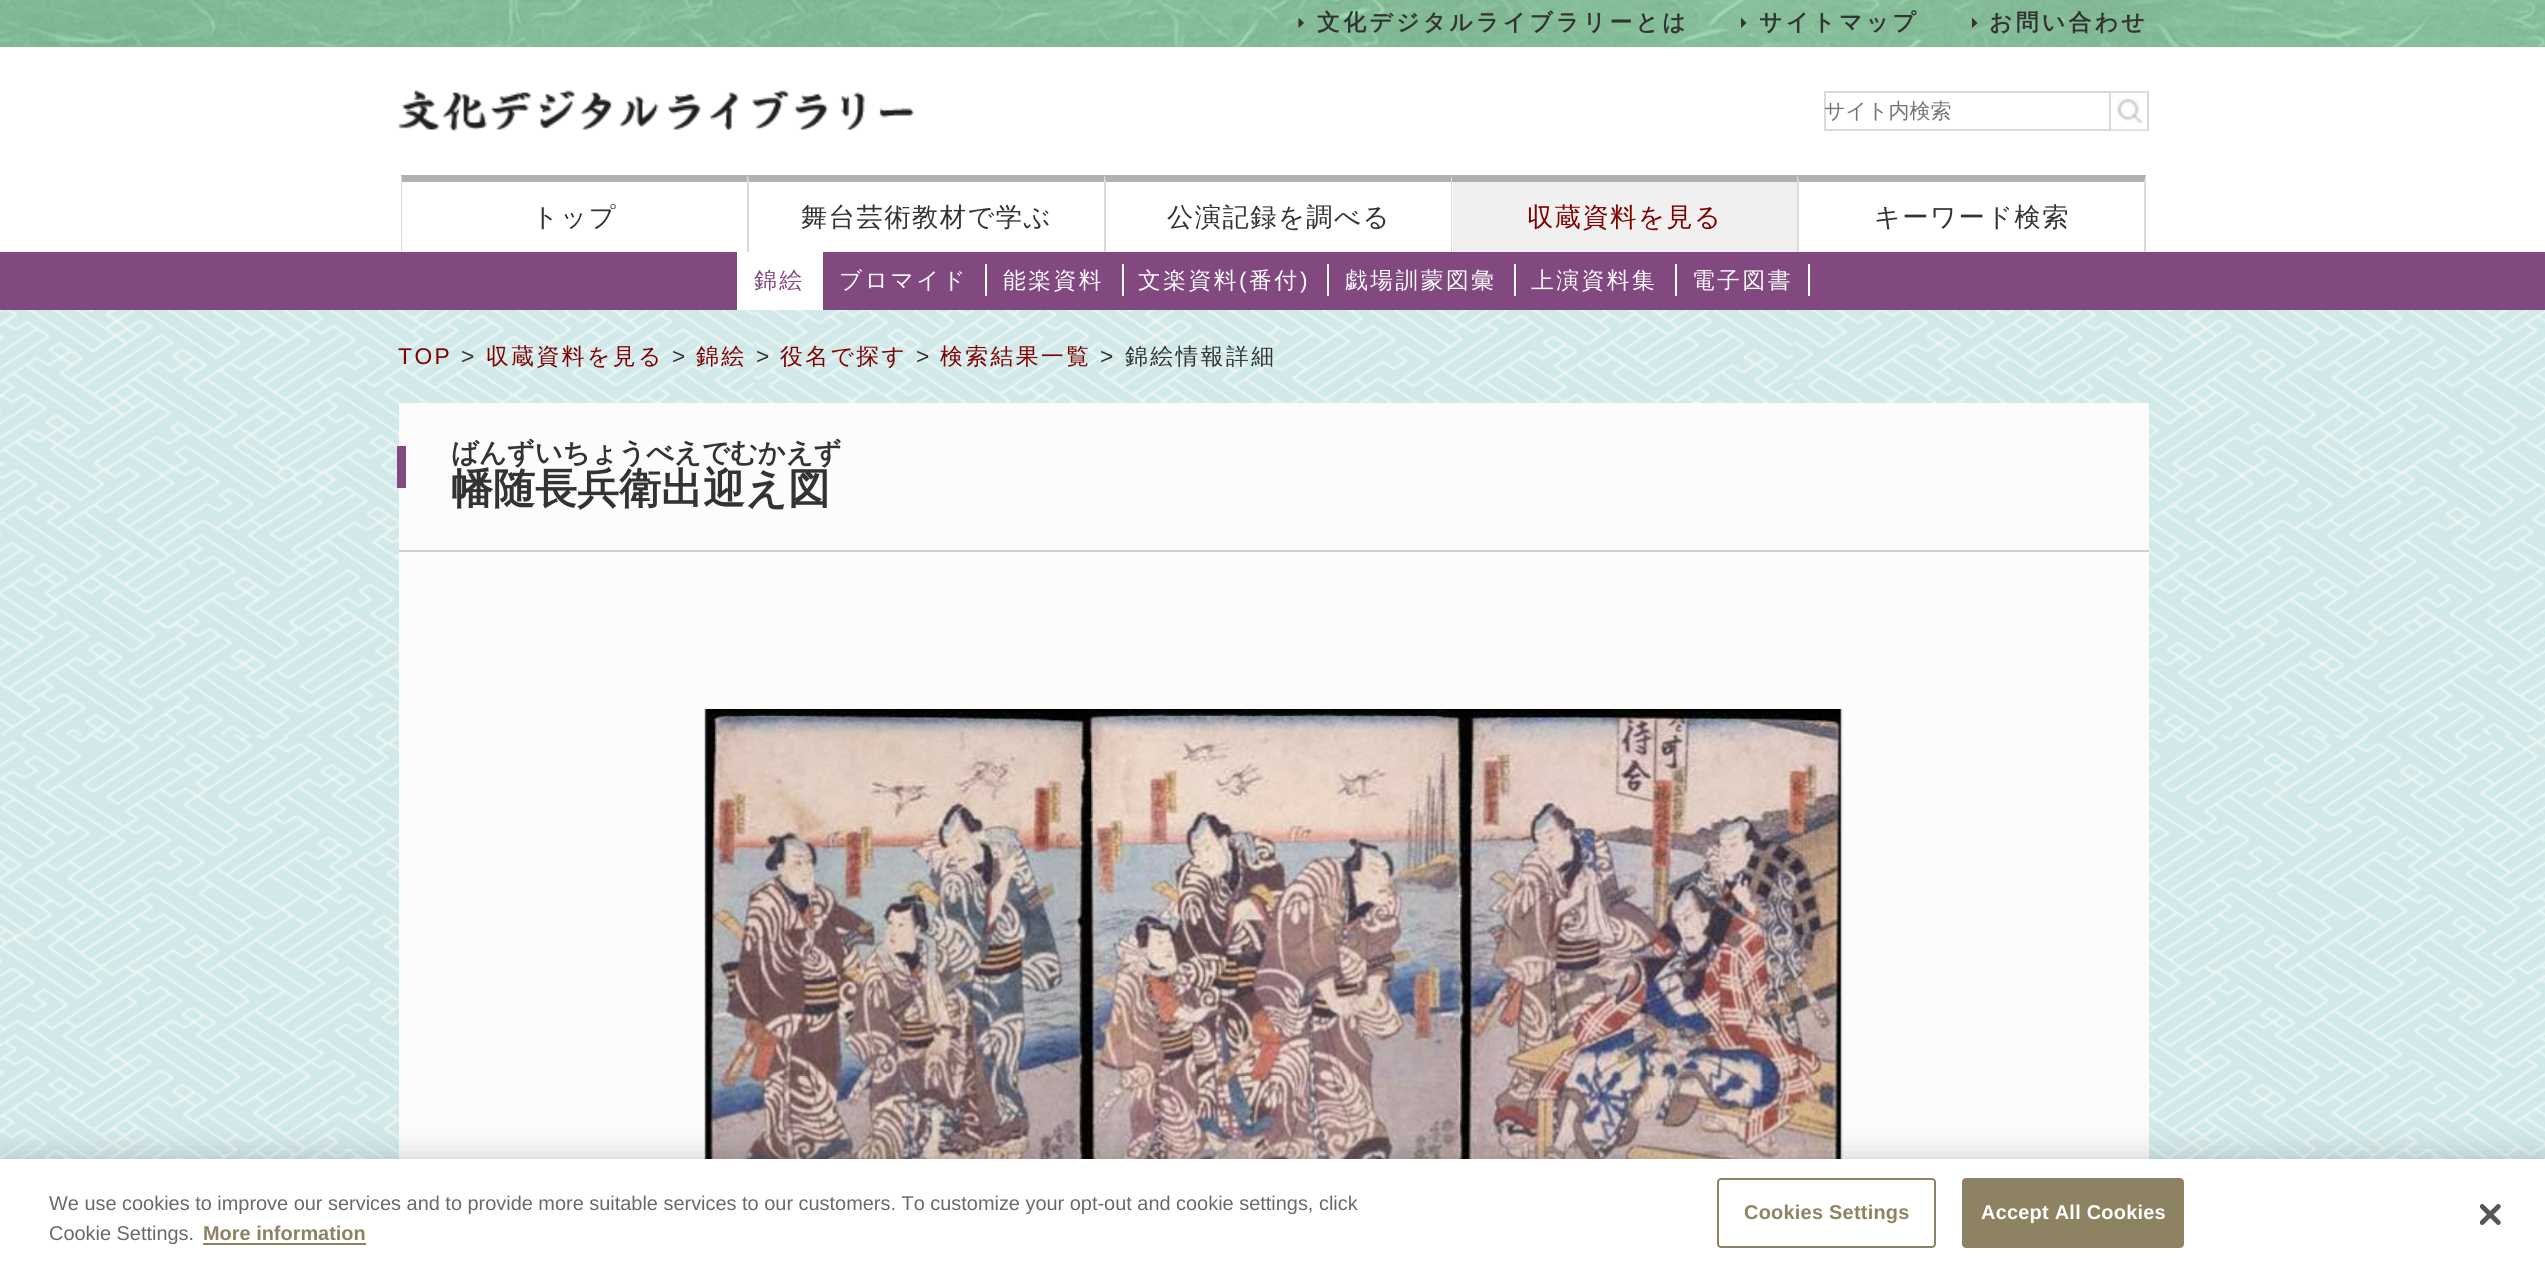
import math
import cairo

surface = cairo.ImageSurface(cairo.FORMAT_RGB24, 2545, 1272)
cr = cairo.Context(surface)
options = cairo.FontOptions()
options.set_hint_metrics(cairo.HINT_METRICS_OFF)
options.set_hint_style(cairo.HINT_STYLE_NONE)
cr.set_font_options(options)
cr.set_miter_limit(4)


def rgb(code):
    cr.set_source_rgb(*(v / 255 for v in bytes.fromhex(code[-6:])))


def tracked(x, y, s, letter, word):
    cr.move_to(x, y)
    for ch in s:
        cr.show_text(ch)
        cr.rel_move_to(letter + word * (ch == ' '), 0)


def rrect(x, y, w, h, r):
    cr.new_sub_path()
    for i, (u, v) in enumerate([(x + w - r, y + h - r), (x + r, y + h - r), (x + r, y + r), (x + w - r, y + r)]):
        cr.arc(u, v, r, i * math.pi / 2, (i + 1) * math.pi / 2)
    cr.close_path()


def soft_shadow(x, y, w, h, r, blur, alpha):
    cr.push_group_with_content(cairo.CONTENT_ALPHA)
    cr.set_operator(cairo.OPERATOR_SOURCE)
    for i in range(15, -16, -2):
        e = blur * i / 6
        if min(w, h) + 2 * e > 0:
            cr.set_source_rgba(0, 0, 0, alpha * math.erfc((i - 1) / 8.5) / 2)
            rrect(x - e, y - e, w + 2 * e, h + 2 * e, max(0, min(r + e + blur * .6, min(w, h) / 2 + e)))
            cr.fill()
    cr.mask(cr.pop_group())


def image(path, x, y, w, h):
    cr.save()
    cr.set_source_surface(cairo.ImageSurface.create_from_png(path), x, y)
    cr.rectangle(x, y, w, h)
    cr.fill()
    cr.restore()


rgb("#ffffff")
cr.paint()
image("img/1.png", 0, 310, 2545, 849)
image("img/2.png", 0, 0, 2545, 47)
rgb("#333333")
cr.new_path()
cr.move_to(1298.5, 28)
cr.line_to(1298.5, 17.5)
cr.line_to(1304, 23)
cr.close_path()
cr.fill()
cr.new_path()
cr.move_to(1741, 28)
cr.line_to(1741, 17.5)
cr.line_to(1746.5, 23)
cr.close_path()
cr.fill()
cr.new_path()
cr.move_to(1972, 28)
cr.line_to(1972, 17.5)
cr.line_to(1977.5, 23)
cr.close_path()
cr.fill()
image("img/3.png", 398, 90, 516, 42)
cr.rectangle(1825, 92, 323, 38)
rgb("#dadada")
cr.stroke()
image("img/4.png", 2110, 92, 38, 38)
cr.rectangle(2147, 93, 1, 37)
cr.fill()
cr.rectangle(2109, 93, 2, 37)
cr.fill()
rgb("#b0b0b0")
cr.new_path()
cr.move_to(401, 175)
cr.line_to(747, 175)
cr.line_to(747, 182)
cr.line_to(402, 182)
cr.close_path()
cr.fill()
rgb("#dadada")
cr.new_path()
cr.move_to(401, 252)
cr.line_to(401, 175)
cr.line_to(402, 182)
cr.line_to(402, 252)
cr.close_path()
cr.fill()
rgb("#b0b0b0")
cr.new_path()
cr.move_to(747, 175)
cr.line_to(1104, 175)
cr.line_to(1104, 182)
cr.line_to(749, 182)
cr.close_path()
cr.fill()
rgb("#dadada")
cr.new_path()
cr.move_to(747, 252)
cr.line_to(747, 175)
cr.line_to(749, 182)
cr.line_to(749, 252)
cr.close_path()
cr.fill()
rgb("#b0b0b0")
cr.new_path()
cr.move_to(1104, 175)
cr.line_to(1451, 175)
cr.line_to(1451, 182)
cr.line_to(1106, 182)
cr.close_path()
cr.fill()
rgb("#dadada")
cr.new_path()
cr.move_to(1104, 252)
cr.line_to(1104, 175)
cr.line_to(1106, 182)
cr.line_to(1106, 252)
cr.close_path()
cr.fill()
rgb("#b0b0b0")
cr.new_path()
cr.move_to(1451, 175)
cr.line_to(1797, 175)
cr.line_to(1797, 182)
cr.line_to(1452, 182)
cr.close_path()
cr.fill()
rgb("#dadada")
cr.new_path()
cr.move_to(1451, 252)
cr.line_to(1451, 175)
cr.line_to(1452, 182)
cr.line_to(1452, 252)
cr.close_path()
cr.fill()
rgb("#f0f0f0")
cr.rectangle(1453, 182, 344, 70)
cr.fill()
rgb("#b0b0b0")
cr.new_path()
cr.move_to(1797, 175)
cr.line_to(2146, 175)
cr.line_to(2144, 182)
cr.line_to(1799, 182)
cr.close_path()
cr.fill()
rgb("#dadada")
cr.new_path()
cr.move_to(2146, 175)
cr.line_to(2146, 252)
cr.line_to(2144, 252)
cr.line_to(2144, 182)
cr.close_path()
cr.fill()
cr.new_path()
cr.move_to(1797, 252)
cr.line_to(1797, 175)
cr.line_to(1799, 182)
cr.line_to(1799, 252)
cr.close_path()
cr.fill()
for x, y, w, h, color in [
    (0, 252, 2545, 58, "#824880"),
    (737, 252, 86, 58, "#ffffff"),
    (985, 264, 2, 32, "#ffffff"),
    (1122, 264, 2, 32, "#ffffff"),
    (1327, 264, 2, 32, "#ffffff"),
    (1514, 264, 2, 32, "#ffffff"),
    (1675, 264, 2, 32, "#ffffff"),
    (1808, 264, 2, 32, "#ffffff"),
    (399, 403, 1750, 756, "#fcfcfc"),
    (399, 550, 1750, 2, "#cdcdcd"),
    (397, 446, 9, 42, "#824880"),
]:
    rgb(color)
    cr.rectangle(x, y, w, h)
    cr.fill()
image("img/5.png", 704, 709, 1139, 450)
rgb("#000000")
soft_shadow(0, 1159, 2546, 113, 0, 16, 0.2)
rgb("#ffffff")
cr.rectangle(0, 1159, 2545, 113)
cr.fill()
rgb("#8d8363")
cr.rectangle(203, 1243, 163, 2)
cr.fill()
rrect(1718, 1179, 217, 68, 3)
cr.stroke()
rrect(1963, 1179, 220, 68, 3)
cr.fill_preserve()
cr.stroke()
image("img/6.png", 2480, 1204, 21, 21)
cr.select_font_face("WenQuanYi Zen Hei", cairo.FONT_SLANT_NORMAL, cairo.FONT_WEIGHT_BOLD)
cr.set_font_size(22.75)
rgb("#333333")
for x, y, s in [
    (1317, 30, "文化デジタルライブラリーとは"),
    (1759, 30, "サイトマップ"),
    (1989, 30, "お問い合わせ"),
]:
    tracked(x, y, s, 3.4, 0)
cr.select_font_face("WenQuanYi Zen Hei Medium")
cr.set_font_size(21)
rgb("#757575")
cr.move_to(1824, 118)
cr.show_text("サイト内検索")
cr.set_font_size(26.25)
rgb("#333333")
for x, y, s in [
    (532, 226, "トップ"),
    (801, 226, "舞台芸術教材で学ぶ"),
    (1167, 226, "公演記録を調べる"),
]:
    tracked(x, y, s, 1.5, 0)
rgb("#800000")
tracked(1527, 226, "収蔵資料を見る", 1.5, 0)
rgb("#333333")
tracked(1874, 226, "キーワード検索", 1.5, 0)
cr.set_font_size(22.75)
rgb("#824880")
tracked(754, 288, "錦絵", 2.5, 0)
rgb("#ffffff")
for x, y, s in [
    (839, 288, "ブロマイド"),
    (1003, 288, "能楽資料"),
    (1138, 288, "文楽資料"),
]:
    tracked(x, y, s, 2.5, 0)
cr.select_font_face("Liberation Sans")
tracked(1239, 288, "(", 2.5, 0)
cr.select_font_face("WenQuanYi Zen Hei Medium")
tracked(1249, 288, "番付", 2.5, 0)
cr.select_font_face("Liberation Sans")
tracked(1300, 288, ")", 2.5, 0)
cr.select_font_face("WenQuanYi Zen Hei Medium")
for x, y, s in [
    (1345, 288, "戯場訓蒙図彙"),
    (1531, 288, "上演資料集"),
    (1692, 288, "電子図書"),
]:
    tracked(x, y, s, 2.5, 0)
cr.select_font_face("Liberation Sans")
rgb("#800000")
tracked(398, 364, "TOP", 2.5, 0)
rgb("#333333")
tracked(461, 364, ">", 2.5, 0)
cr.select_font_face("WenQuanYi Zen Hei Medium")
rgb("#800000")
tracked(486, 364, "収蔵資料を見る", 2.5, 0)
cr.select_font_face("Liberation Sans")
rgb("#333333")
tracked(672, 364, ">", 2.5, 0)
cr.select_font_face("WenQuanYi Zen Hei Medium")
rgb("#800000")
tracked(696, 364, "錦絵", 2.5, 0)
cr.select_font_face("Liberation Sans")
rgb("#333333")
tracked(756, 364, ">", 2.5, 0)
cr.select_font_face("WenQuanYi Zen Hei Medium")
rgb("#800000")
tracked(780, 364, "役名で探す", 2.5, 0)
cr.select_font_face("Liberation Sans")
rgb("#333333")
tracked(916, 364, ">", 2.5, 0)
cr.select_font_face("WenQuanYi Zen Hei Medium")
rgb("#800000")
tracked(940, 364, "検索結果一覧", 2.5, 0)
cr.select_font_face("Liberation Sans")
rgb("#333333")
tracked(1100, 364, ">", 2.5, 0)
cr.select_font_face("WenQuanYi Zen Hei Medium")
tracked(1125, 364, "錦絵情報詳細", 2.5, 0)
cr.select_font_face("WenQuanYi Zen Hei", cairo.FONT_SLANT_NORMAL, cairo.FONT_WEIGHT_BOLD)
cr.set_font_size(27.25)
cr.move_to(451, 462)
cr.show_text("ばんずいちょうべえでむかえず")
cr.set_font_size(42)
cr.move_to(451, 503)
cr.show_text("幡随長兵衛出迎え図")
cr.select_font_face("Liberation Sans")
cr.set_font_size(19.92)
rgb("#696969")
cr.move_to(49, 1210)
cr.show_text("We use cookies to improve our services and to provide more suitable services to our customers. To customize your opt-out and cookie settings, click")
cr.move_to(49, 1240)
cr.show_text("Cookie Settings.")
cr.select_font_face("Liberation Sans", cairo.FONT_SLANT_NORMAL, cairo.FONT_WEIGHT_BOLD)
rgb("#8d8363")
cr.move_to(203, 1240)
cr.show_text("More information")
tracked(1744, 1219, "Cookies Settings", 0.25, 0)
rgb("#ffffff")
tracked(1981, 1219, "Accept All Cookies", 0.25, 0)
surface.write_to_png("page.png")
